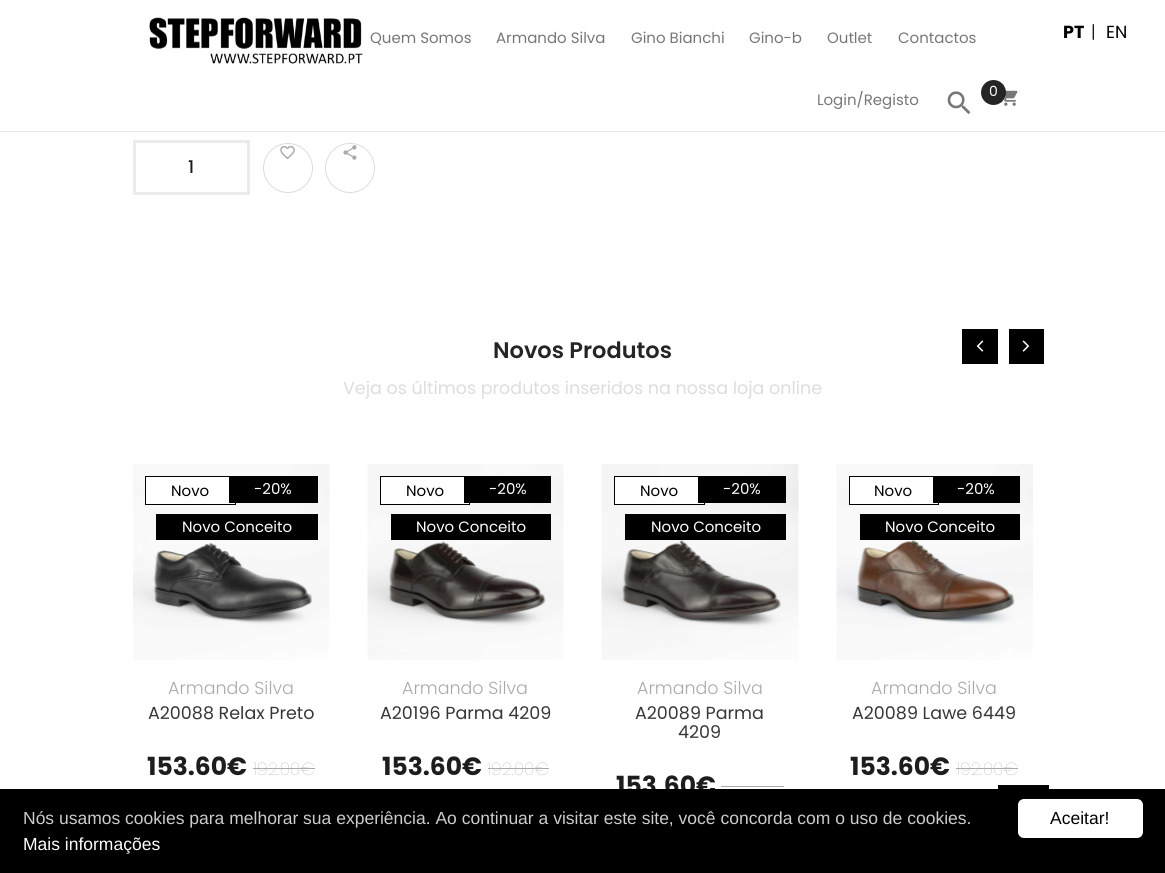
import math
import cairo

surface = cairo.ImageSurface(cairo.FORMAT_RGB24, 1165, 873)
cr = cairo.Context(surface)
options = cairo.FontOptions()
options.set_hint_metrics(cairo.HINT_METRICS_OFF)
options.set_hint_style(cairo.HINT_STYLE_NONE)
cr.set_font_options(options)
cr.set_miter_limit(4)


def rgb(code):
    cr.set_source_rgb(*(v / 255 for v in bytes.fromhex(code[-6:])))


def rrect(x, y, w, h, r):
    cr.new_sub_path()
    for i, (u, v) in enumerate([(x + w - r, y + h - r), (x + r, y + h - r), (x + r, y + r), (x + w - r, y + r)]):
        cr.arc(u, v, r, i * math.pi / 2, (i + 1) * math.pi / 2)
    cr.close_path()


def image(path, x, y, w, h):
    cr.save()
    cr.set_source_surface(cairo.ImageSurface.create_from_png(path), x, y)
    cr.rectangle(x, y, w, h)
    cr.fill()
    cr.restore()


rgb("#ffffff")
cr.paint()
rgb("#e7e7e7")
cr.rectangle(0, 131, 1165, 1)
cr.fill()
image("img/1.png", 149, 17, 214, 47)
image("img/2.png", 947, 91, 24, 23)
image("img/3.png", 1004, 90, 14, 16)
rgb("#252525")
cr.arc(993.5, 92.5, 12.5, 0, 2 * math.pi)
cr.fill()
cr.rectangle(134.5, 141.5, 114, 52)
rgb("#ebebeb")
cr.set_line_width(3)
cr.stroke()
cr.arc(288, 168, 24.5, 0, 2 * math.pi)
rgb("#dddddd")
cr.set_line_width(1)
cr.stroke()
image("img/4.png", 280, 146, 15, 14)
cr.arc(350, 168, 24.5, 0, 2 * math.pi)
cr.stroke()
image("img/5.png", 343, 145, 14, 15)
rgb("#000000")
cr.rectangle(962, 329, 36, 35)
cr.fill()
image("img/6.png", 976, 340, 8, 12)
cr.rectangle(1009, 329, 35, 35)
cr.fill()
image("img/7.png", 1022, 340, 8, 12)
image("img/8.png", 133, 464, 197, 196)
rgb("#ffffff")
cr.rectangle(145.5, 476.5, 90, 28)
cr.fill_preserve()
rgb("#000000")
cr.stroke()
for x, y, w, h, color in [
    (229, 476, 89, 27, "#000000"),
    (156, 514, 162, 26, "#000000"),
    (253, 768, 62, 1, "#aaaaaa"),
]:
    rgb(color)
    cr.rectangle(x, y, w, h)
    cr.fill()
image("img/9.png", 367, 464, 197, 196)
rgb("#ffffff")
cr.rectangle(380.5, 476.5, 89, 28)
cr.fill_preserve()
rgb("#000000")
cr.stroke()
for x, y, w, h, color in [
    (464, 476, 87, 27, "#000000"),
    (391, 514, 160, 26, "#000000"),
    (488, 768, 61, 1, "#aaaaaa"),
]:
    rgb(color)
    cr.rectangle(x, y, w, h)
    cr.fill()
image("img/10.png", 601, 464, 198, 196)
rgb("#ffffff")
cr.rectangle(614.5, 476.5, 90, 28)
cr.fill_preserve()
rgb("#000000")
cr.stroke()
for x, y, w, h, color in [
    (698, 476, 88, 27, "#000000"),
    (625, 514, 161, 26, "#000000"),
    (721, 786, 63, 1, "#aaaaaa"),
]:
    rgb(color)
    cr.rectangle(x, y, w, h)
    cr.fill()
image("img/11.png", 836, 464, 197, 196)
rgb("#ffffff")
cr.rectangle(849.5, 476.5, 89, 28)
cr.fill_preserve()
rgb("#000000")
cr.stroke()
for x, y, w, h, color in [
    (933, 476, 87, 27, "#000000"),
    (860, 514, 160, 26, "#000000"),
    (956, 768, 62, 1, "#aaaaaa"),
    (998, 785, 51, 4, "#000000"),
]:
    rgb(color)
    cr.rectangle(x, y, w, h)
    cr.fill()
cr.select_font_face("Poppins")
cr.set_font_size(15)
rgb("#777777")
for x, y, s in [
    (370, 43, "Quem Somos"),
    (496, 43, "Armando Silva"),
    (631, 43, "Gino Bianchi"),
    (749, 43, "Gino-b"),
    (827, 43, "Outlet"),
    (898, 43, "Contactos"),
    (817, 105, "Login/Registo"),
]:
    cr.move_to(x, y)
    cr.show_text(s)
cr.set_font_size(14)
rgb("#ffffff")
cr.move_to(989, 96)
cr.show_text("0")
cr.select_font_face("Poppins", cairo.FONT_SLANT_NORMAL, cairo.FONT_WEIGHT_BOLD)
cr.set_font_size(17.5)
rgb("#000000")
cr.move_to(1063, 38)
cr.show_text("PT")
cr.select_font_face("Poppins Light")
cr.move_to(1091, 38)
cr.show_text("|")
cr.select_font_face("Poppins")
cr.move_to(1106, 38)
cr.show_text("EN")
cr.select_font_face("Poppins Medium")
rgb("#1d1d1d")
cr.move_to(188, 173)
cr.show_text("1")
cr.select_font_face("Poppins SemiBold")
cr.set_font_size(22.5)
rgb("#252525")
cr.move_to(493, 358)
cr.show_text("Novos Produtos")
cr.select_font_face("Poppins")
cr.set_font_size(17.5)
rgb("#dddddd")
cr.move_to(343, 394)
cr.show_text("Veja os últimos produtos inseridos na nossa loja online")
cr.set_font_size(15)
rgb("#000000")
cr.move_to(171, 496)
cr.show_text("Novo")
rgb("#ffffff")
cr.move_to(254, 494)
cr.show_text("-20%")
cr.move_to(182, 532)
cr.show_text("Novo Conceito")
cr.select_font_face("Poppins Light")
cr.set_font_size(17.5)
rgb("#aaaaaa")
cr.move_to(168, 694)
cr.show_text("Armando Silva")
cr.select_font_face("Poppins")
rgb("#373737")
cr.move_to(148, 719)
cr.show_text("A20088 Relax Preto")
cr.select_font_face("Poppins", cairo.FONT_SLANT_NORMAL, cairo.FONT_WEIGHT_BOLD)
cr.set_font_size(25)
rgb("#1d1d1d")
cr.move_to(147, 775)
cr.show_text("153.60€")
cr.select_font_face("Poppins Thin")
cr.set_font_size(17.5)
rgb("#aaaaaa")
cr.move_to(253, 775)
cr.show_text("192.00€")
cr.select_font_face("Poppins")
cr.set_font_size(15)
rgb("#000000")
cr.move_to(406, 496)
cr.show_text("Novo")
rgb("#ffffff")
cr.move_to(489, 494)
cr.show_text("-20%")
cr.move_to(416, 532)
cr.show_text("Novo Conceito")
cr.select_font_face("Poppins Light")
cr.set_font_size(17.5)
rgb("#aaaaaa")
cr.move_to(402, 694)
cr.show_text("Armando Silva")
cr.select_font_face("Poppins")
rgb("#373737")
cr.move_to(380, 719)
cr.show_text("A20196 Parma 4209")
cr.select_font_face("Poppins", cairo.FONT_SLANT_NORMAL, cairo.FONT_WEIGHT_BOLD)
cr.set_font_size(25)
rgb("#1d1d1d")
cr.move_to(382, 775)
cr.show_text("153.60€")
cr.select_font_face("Poppins Thin")
cr.set_font_size(17.5)
rgb("#aaaaaa")
cr.move_to(487, 775)
cr.show_text("192.00€")
cr.select_font_face("Poppins")
cr.set_font_size(15)
rgb("#000000")
cr.move_to(640, 496)
cr.show_text("Novo")
rgb("#ffffff")
cr.move_to(723, 494)
cr.show_text("-20%")
cr.move_to(651, 532)
cr.show_text("Novo Conceito")
cr.select_font_face("Poppins Light")
cr.set_font_size(17.5)
rgb("#aaaaaa")
cr.move_to(637, 694)
cr.show_text("Armando Silva")
cr.select_font_face("Poppins")
rgb("#373737")
cr.move_to(635, 719)
cr.show_text("A20089 Parma")
cr.move_to(678, 738)
cr.show_text("4209")
cr.select_font_face("Poppins", cairo.FONT_SLANT_NORMAL, cairo.FONT_WEIGHT_BOLD)
cr.set_font_size(25)
rgb("#1d1d1d")
cr.move_to(616, 794)
cr.show_text("153.60€")
cr.select_font_face("Poppins")
cr.set_font_size(15)
rgb("#000000")
cr.move_to(874, 496)
cr.show_text("Novo")
rgb("#ffffff")
cr.move_to(957, 494)
cr.show_text("-20%")
cr.move_to(885, 532)
cr.show_text("Novo Conceito")
cr.select_font_face("Poppins Light")
cr.set_font_size(17.5)
rgb("#aaaaaa")
cr.move_to(871, 694)
cr.show_text("Armando Silva")
cr.select_font_face("Poppins")
rgb("#373737")
cr.move_to(852, 719)
cr.show_text("A20089 Lawe 6449")
cr.select_font_face("Poppins", cairo.FONT_SLANT_NORMAL, cairo.FONT_WEIGHT_BOLD)
cr.set_font_size(25)
rgb("#1d1d1d")
cr.move_to(850, 775)
cr.show_text("153.60€")
cr.select_font_face("Poppins Thin")
cr.set_font_size(17.5)
rgb("#aaaaaa")
cr.move_to(956, 775)
cr.show_text("192.00€")
rgb("#000000")
cr.rectangle(0, 789, 1165, 84)
cr.fill()
cr.select_font_face("Liberation Sans")
rgb("#cccccc")
cr.move_to(23, 824)
cr.show_text("Nós usamos cookies para melhorar sua experiência. Ao continuar a visitar este site, você concorda com o uso de cookies.")
rgb("#ffffff")
cr.move_to(23, 850)
cr.show_text("Mais informações")
rrect(1018, 799, 125, 39, 6)
cr.fill()
rgb("#000000")
cr.move_to(1050, 824)
cr.show_text("Aceitar!")
surface.write_to_png("page.png")
